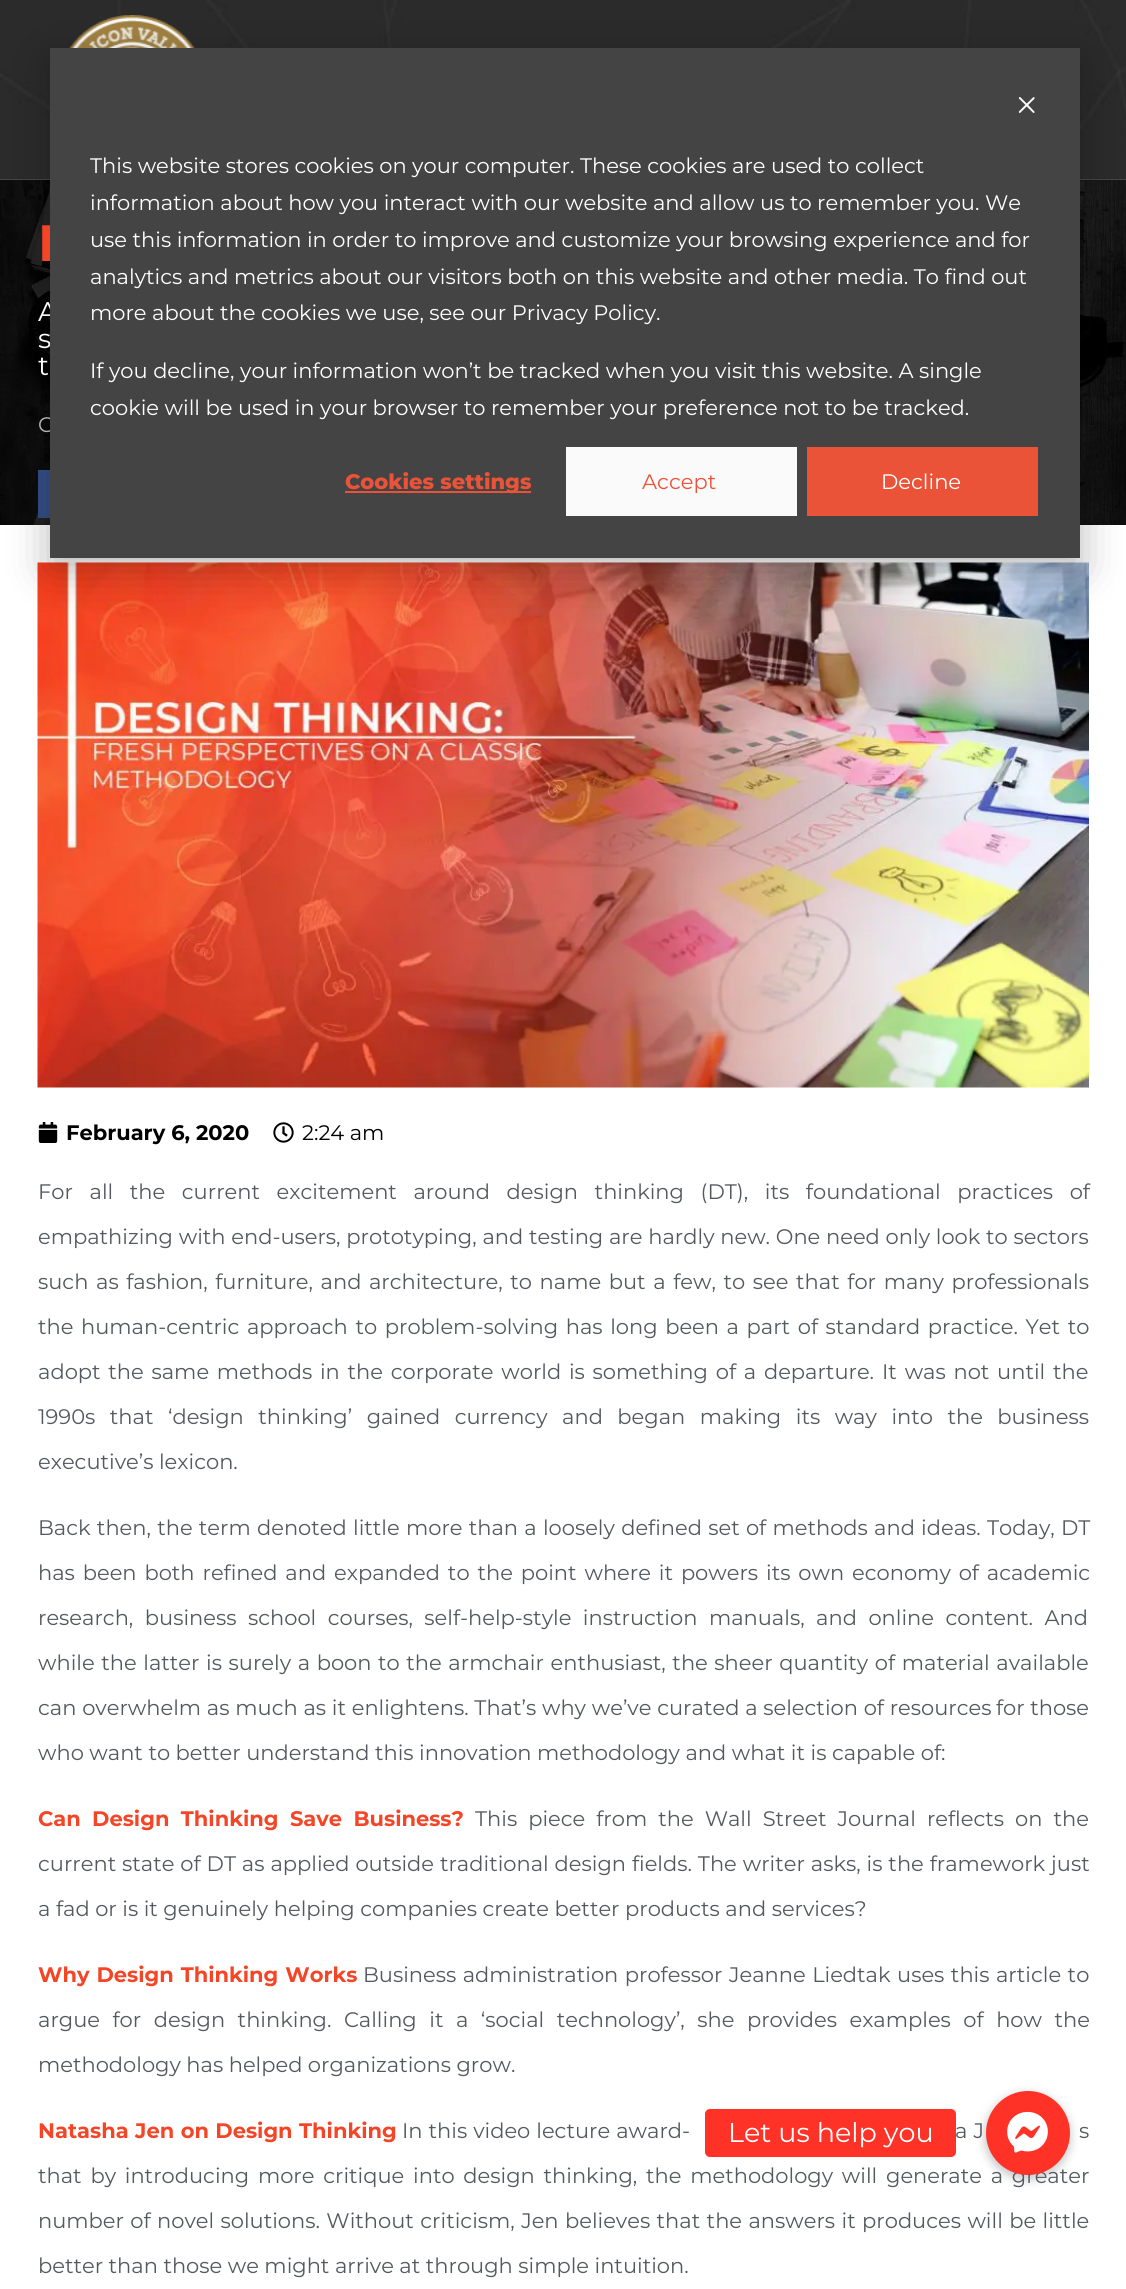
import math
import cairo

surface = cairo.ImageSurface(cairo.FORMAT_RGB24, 1126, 2289)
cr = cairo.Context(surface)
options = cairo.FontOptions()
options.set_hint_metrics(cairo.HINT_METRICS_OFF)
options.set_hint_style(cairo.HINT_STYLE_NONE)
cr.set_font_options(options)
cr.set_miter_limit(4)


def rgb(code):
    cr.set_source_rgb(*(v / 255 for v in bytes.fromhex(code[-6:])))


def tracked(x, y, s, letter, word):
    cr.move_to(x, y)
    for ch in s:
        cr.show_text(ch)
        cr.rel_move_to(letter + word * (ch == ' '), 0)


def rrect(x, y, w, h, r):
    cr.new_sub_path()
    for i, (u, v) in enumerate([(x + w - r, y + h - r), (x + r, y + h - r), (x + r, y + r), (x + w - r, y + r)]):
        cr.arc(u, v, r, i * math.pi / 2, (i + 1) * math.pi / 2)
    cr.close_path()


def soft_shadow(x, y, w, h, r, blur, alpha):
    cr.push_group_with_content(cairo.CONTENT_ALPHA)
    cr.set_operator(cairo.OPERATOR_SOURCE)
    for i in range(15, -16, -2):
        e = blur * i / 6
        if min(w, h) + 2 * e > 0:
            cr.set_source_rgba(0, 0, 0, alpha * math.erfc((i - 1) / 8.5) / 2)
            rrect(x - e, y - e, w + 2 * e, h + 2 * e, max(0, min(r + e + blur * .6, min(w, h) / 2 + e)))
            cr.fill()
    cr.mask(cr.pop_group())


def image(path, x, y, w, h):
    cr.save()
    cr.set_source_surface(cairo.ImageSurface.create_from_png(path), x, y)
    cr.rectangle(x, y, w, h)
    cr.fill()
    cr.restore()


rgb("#ffffff")
cr.paint()
image("img/1.png", 0, 0, 1126, 180)
image("img/2.png", 69, 15, 127, 33)
image("img/4.png", 0, 180, 1126, 345)
gradient = cairo.LinearGradient(38, 494, 86, 494)
gradient.add_color_stop_rgba(0, 0.204, 0.306, 0.525, 1)
gradient.add_color_stop_rgba(1, 0.231, 0.349, 0.596, 1)
cr.set_source(gradient)
cr.rectangle(38, 470, 12, 48)
cr.fill()
rgb("#000000")
soft_shadow(0, 525, 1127, 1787, 0, 7.5, 0.16)
rgb("#ffffff")
cr.rectangle(0, 525, 1126, 1764)
cr.fill()
image("img/5.png", 37, 562, 1052, 526)
rgb("#000000")
soft_shadow(50, 60, 1030, 510, 0, 21, 0.28)
image("img/6.png", 38, 1122, 20, 21)
image("img/7.png", 273, 1122, 21, 21)
soft_shadow(984, 2093, 87, 87, 43.5, 4.5, 0.2)
rgb("#ff3228")
rrect(705, 2109, 251, 48, 5)
cr.fill()
cr.select_font_face("Montserrat", cairo.FONT_SLANT_NORMAL, cairo.FONT_WEIGHT_BOLD)
cr.set_font_size(51)
rgb("#f44526")
cr.move_to(38, 261)
cr.show_text("I")
cr.select_font_face("Montserrat")
cr.set_font_size(27)
rgb("#ffffff")
for x, y, s in [
    (38, 321, "A"),
    (38, 348, "s"),
    (38, 375, "t"),
]:
    cr.move_to(x, y)
    cr.show_text(s)
cr.set_font_size(21)
rgb("#b7b4b4")
cr.move_to(38, 432)
cr.show_text("C")
rgb("#444444")
cr.rectangle(50, 48, 1030, 510)
cr.fill()
image("img/3.png", 1018, 97, 17, 16)
rgb("#eb5338")
cr.rectangle(807, 447, 231, 69)
cr.fill()
rgb("#ffffff")
cr.move_to(881, 489)
cr.show_text("Decline")
rgb("#fafafa")
cr.rectangle(566, 447, 231, 69)
cr.fill()
rgb("#eb5338")
cr.move_to(642, 489)
cr.show_text("Accept")
cr.rectangle(345, 491, 186, 2)
cr.fill()
cr.select_font_face("Montserrat ExtraBold")
cr.move_to(345, 489)
cr.show_text("Cookies settings")
cr.select_font_face("Montserrat")
rgb("#ffffff")
for x, y, s in [
    (90, 415, "cookie will be used in your browser to remember your preference not to be tracked."),
    (90, 378, "If you decline, your information won’t be tracked when you visit this website. A single"),
    (90, 320, "more about the cookies we use, see our Privacy Policy."),
    (90, 284, "analytics and metrics about our visitors both on this website and other media. To find out"),
    (90, 247, "use this information in order to improve and customize your browsing experience and for"),
    (90, 210, "information about how you interact with our website and allow us to remember you. We"),
    (90, 173, "This website stores cookies on your computer. These cookies are used to collect"),
]:
    cr.move_to(x, y)
    cr.show_text(s)
cr.select_font_face("Montserrat", cairo.FONT_SLANT_NORMAL, cairo.FONT_WEIGHT_BOLD)
rgb("#000000")
cr.move_to(66, 1140)
cr.show_text("February 6, 2020")
cr.select_font_face("Montserrat")
cr.move_to(302, 1140)
cr.show_text("2:24 am")
rgb("#54595f")
tracked(38, 1199, "For all the current excitement around design thinking (DT), its foundational practices of", 0, 11.1)
tracked(38, 1244, "empathizing with end-users, prototyping, and testing are hardly new. One need only look to sectors", 0, 0.25)
tracked(38, 1289, "such as fashion, furniture, and architecture, to name but a few, to see that for many professionals", 0, 2.1)
tracked(38, 1334, "the human-centric approach to problem-solving has long been a part of standard practice. Yet to", 0, 2.1)
tracked(38, 1379, "adopt the same methods in the corporate world is something of a departure.", 0, 2.25)
tracked(882, 1379, "It was not until the", 0, 2.25)
tracked(38, 1424, "1990s that ‘design thinking’ gained currency and began making its way into the business", 0, 9)
cr.move_to(38, 1469)
cr.show_text("executive’s lexicon.")
tracked(38, 1535, "Back then, the term denoted little more than a loosely defined set of methods and ideas. Today, DT", 0, 0.75)
tracked(38, 1580, "has been both refined and expanded to the point where it powers its own economy of academic", 0, 2.4)
tracked(38, 1625, "research, business school courses, self-help-style instruction manuals, and online content. And", 0, 6)
tracked(38, 1670, "while the latter is surely a boon to the armchair enthusiast, the sheer quantity of material available", 0, 1.1)
tracked(38, 1715, "can overwhelm as much as it enlightens. That’s why we’ve curated a selection of resources", 0, 0.25)
cr.move_to(996, 1715)
cr.show_text("for those")
cr.move_to(38, 1760)
cr.show_text("who want to better understand this innovation methodology and what it is capable of:")
cr.select_font_face("Montserrat", cairo.FONT_SLANT_NORMAL, cairo.FONT_WEIGHT_BOLD)
rgb("#f44526")
tracked(38, 1826, "Can Design Thinking Save Business?", 0, 5.5)
cr.select_font_face("Montserrat")
rgb("#54595f")
tracked(475, 1826, "This piece from the Wall Street Journal reflects on the", 0, 5.5)
tracked(38, 1871, "current state of DT as applied outside traditional design fields. The writer asks, is the framework just", 0, 0.4)
cr.move_to(38, 1916)
cr.show_text("a fad or is it genuinely helping companies create better products and services?")
cr.select_font_face("Montserrat", cairo.FONT_SLANT_NORMAL, cairo.FONT_WEIGHT_BOLD)
rgb("#f44526")
tracked(38, 1982, "Why Design Thinking Works", 0, 1)
cr.select_font_face("Montserrat")
rgb("#54595f")
tracked(363, 1982, "Business administration professor Jeanne Liedtak uses this article to", 0, 1)
tracked(38, 2027, "argue for design thinking. Calling it a ‘social technology’, she provides examples of how the", 0, 7)
cr.move_to(38, 2072)
cr.show_text("methodology has helped organizations grow.")
cr.select_font_face("Montserrat", cairo.FONT_SLANT_NORMAL, cairo.FONT_WEIGHT_BOLD)
rgb("#f44526")
tracked(38, 2138, "Natasha Jen on Design Thinking", 0, 0.5)
cr.select_font_face("Montserrat")
rgb("#54595f")
for x, y, s in [
    (402, 2138, "In this video lecture award-"),
    (955, 2138, "a J"),
    (1079, 2138, "s"),
]:
    tracked(x, y, s, 0, 0.5)
tracked(38, 2183, "that by introducing more critique into design thinking, the methodology will generate a greater", 0, 3.25)
tracked(38, 2228, "number of novel solutions. Without criticism, Jen believes that the answers it produces will be little", 0, 0.9)
cr.move_to(38, 2273)
cr.show_text("better than those we might arrive at through simple intuition.")
rgb("#ff3228")
cr.new_path()
cr.arc(1028, 2133, 42, 0, 2 * math.pi)
cr.fill()
cr.set_font_size(27)
rgb("#ffffff")
cr.move_to(728, 2142)
cr.show_text("Let us help you")
image("img/8.png", 1007, 2111, 41, 42)
surface.write_to_png("page.png")
